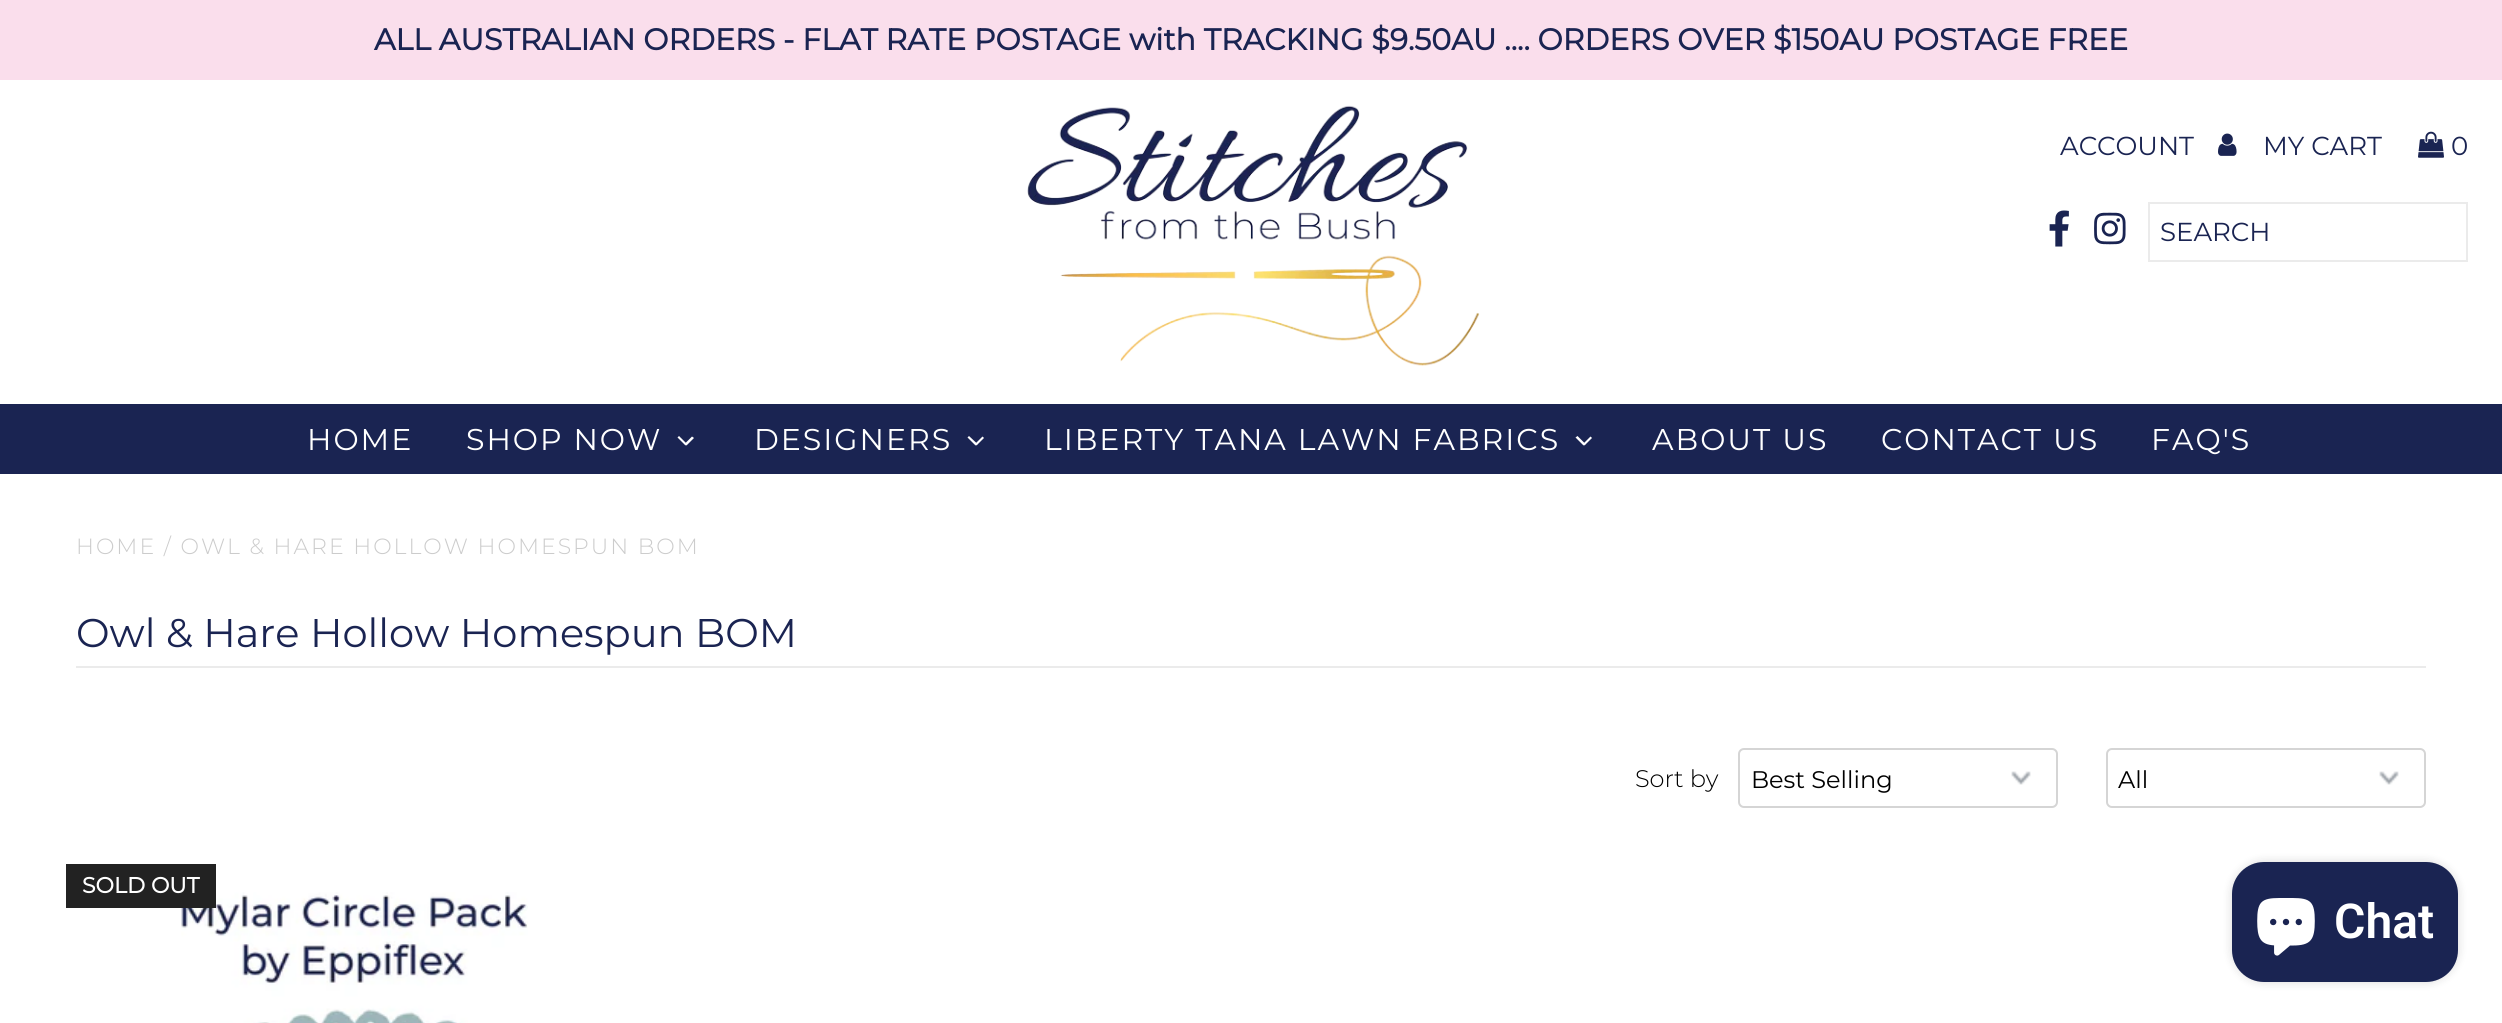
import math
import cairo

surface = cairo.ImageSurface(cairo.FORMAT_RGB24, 2502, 1023)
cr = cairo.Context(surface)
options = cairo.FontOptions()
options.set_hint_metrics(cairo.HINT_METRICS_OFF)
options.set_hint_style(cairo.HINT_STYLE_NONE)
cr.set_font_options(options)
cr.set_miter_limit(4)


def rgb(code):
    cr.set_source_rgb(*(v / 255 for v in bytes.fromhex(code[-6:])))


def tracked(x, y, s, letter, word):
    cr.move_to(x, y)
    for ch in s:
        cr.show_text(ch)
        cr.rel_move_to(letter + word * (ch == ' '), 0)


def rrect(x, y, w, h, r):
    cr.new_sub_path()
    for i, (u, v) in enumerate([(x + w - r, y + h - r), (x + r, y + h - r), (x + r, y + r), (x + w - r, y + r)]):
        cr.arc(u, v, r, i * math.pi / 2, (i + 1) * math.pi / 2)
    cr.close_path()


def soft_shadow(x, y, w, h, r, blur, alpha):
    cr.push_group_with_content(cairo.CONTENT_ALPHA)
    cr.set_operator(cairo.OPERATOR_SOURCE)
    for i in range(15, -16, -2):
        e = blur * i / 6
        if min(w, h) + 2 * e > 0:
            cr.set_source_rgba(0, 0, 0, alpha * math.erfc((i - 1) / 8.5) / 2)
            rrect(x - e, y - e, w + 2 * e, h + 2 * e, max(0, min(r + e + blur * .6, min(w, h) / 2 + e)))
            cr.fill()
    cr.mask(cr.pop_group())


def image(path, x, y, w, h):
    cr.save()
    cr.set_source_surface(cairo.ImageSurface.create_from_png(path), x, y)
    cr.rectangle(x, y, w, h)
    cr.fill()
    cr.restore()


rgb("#ffffff")
cr.paint()
rgb("#fadeec")
cr.rectangle(0, 0, 2502, 80)
cr.fill()
image("img/1.png", 1027, 105, 453, 261)
image("img/2.png", 2218, 133, 19, 23)
image("img/3.png", 2418, 131, 26, 27)
image("img/4.png", 2049, 210, 20, 37)
image("img/5.png", 2094, 212, 32, 33)
cr.rectangle(2149, 203, 318, 58)
rgb("#ebebeb")
cr.stroke()
rgb("#1a2452")
cr.rectangle(0, 404, 2502, 70)
cr.fill()
rgb("#ffffff")
cr.new_path()
cr.move_to(692, 436.5)
cr.line_to(694, 438)
cr.line_to(686.5, 445.5)
cr.line_to(684.5, 444)
cr.close_path()
cr.fill()
cr.new_path()
cr.move_to(679, 436)
cr.line_to(687, 444)
cr.line_to(685.5, 445.5)
cr.line_to(677.5, 437.5)
cr.close_path()
cr.fill()
cr.new_path()
cr.move_to(982.5, 436.5)
cr.line_to(984, 438)
cr.line_to(976.5, 445.5)
cr.line_to(975, 444)
cr.close_path()
cr.fill()
cr.new_path()
cr.move_to(969, 436)
cr.line_to(977.5, 444)
cr.line_to(975.5, 445.5)
cr.line_to(967.5, 437.5)
cr.close_path()
cr.fill()
cr.new_path()
cr.move_to(1590.5, 436.5)
cr.line_to(1592, 438)
cr.line_to(1584.5, 445.5)
cr.line_to(1583, 444)
cr.close_path()
cr.fill()
cr.new_path()
cr.move_to(1577.5, 436)
cr.line_to(1585.5, 444)
cr.line_to(1583.5, 445.5)
cr.line_to(1575.5, 437.5)
cr.close_path()
cr.fill()
rgb("#ebebeb")
cr.rectangle(76, 666, 2350, 2)
cr.fill()
image("img/6.png", 2011, 771, 20, 14)
rrect(1739, 749, 318, 58, 5)
rgb("#d5d5d5")
cr.stroke()
image("img/6.png", 2379, 771, 20, 14)
rrect(2107, 749, 318, 58, 5)
cr.stroke()
image("img/7.png", 181, 892, 347, 131)
rgb("#222222")
cr.rectangle(66, 864, 150, 44)
cr.fill()
rgb("#000000")
soft_shadow(2232, 862, 226, 120, 32, 5, 0.15)
rgb("#1a2452")
rrect(2232, 862, 226, 120, 32)
cr.fill()
image("img/8.png", 2257, 898, 58, 58)
cr.select_font_face("Montserrat", cairo.FONT_SLANT_NORMAL, cairo.FONT_WEIGHT_BOLD)
cr.set_font_size(30)
cr.move_to(374, 50)
cr.show_text("ALL AUSTRALIAN ORDERS - FLAT RATE POSTAGE with TRACKING $9.50AU .... ORDERS OVER $150AU POSTAGE FREE")
cr.select_font_face("Montserrat")
cr.set_font_size(26)
for x, y, s in [
    (2060, 155, "ACCOUNT"),
    (2263, 155, "MY CART"),
    (2451, 155, "0"),
    (2160, 241, "SEARCH"),
]:
    cr.move_to(x, y)
    cr.show_text(s)
cr.set_font_size(30)
rgb("#ffffff")
for x, y, s in [
    (307, 450, "HOME"),
    (466, 450, "SHOP NOW"),
    (754, 450, "DESIGNERS"),
    (1044, 450, "LIBERTY TANA LAWN FABRICS"),
    (1652, 450, "ABOUT US"),
    (1881, 450, "CONTACT US"),
    (2151, 450, "FAQ'S"),
]:
    tracked(x, y, s, 2, 0)
cr.select_font_face("Montserrat Light")
cr.set_font_size(22)
rgb("#cccccc")
tracked(76, 554, "HOME / OWL & HARE HOLLOW HOMESPUN BOM", 2, 0)
cr.select_font_face("Montserrat")
cr.set_font_size(40)
rgb("#1a2452")
cr.move_to(76, 647)
cr.show_text("Owl & Hare Hollow Homespun BOM")
cr.select_font_face("Montserrat Light")
cr.set_font_size(24)
rgb("#000000")
cr.move_to(1635, 787)
cr.show_text("Sort by")
cr.select_font_face("Montserrat")
cr.move_to(1751, 788)
cr.show_text("Best Selling")
cr.move_to(2118, 788)
cr.show_text("All")
cr.select_font_face("Montserrat", cairo.FONT_SLANT_NORMAL, cairo.FONT_WEIGHT_BOLD)
cr.set_font_size(22)
rgb("#ffffff")
cr.move_to(82, 893)
cr.show_text("SOLD OUT")
cr.select_font_face("Roboto SemiBold")
cr.set_font_size(48)
cr.move_to(2334, 938)
cr.show_text("Chat")
surface.write_to_png("page.png")
